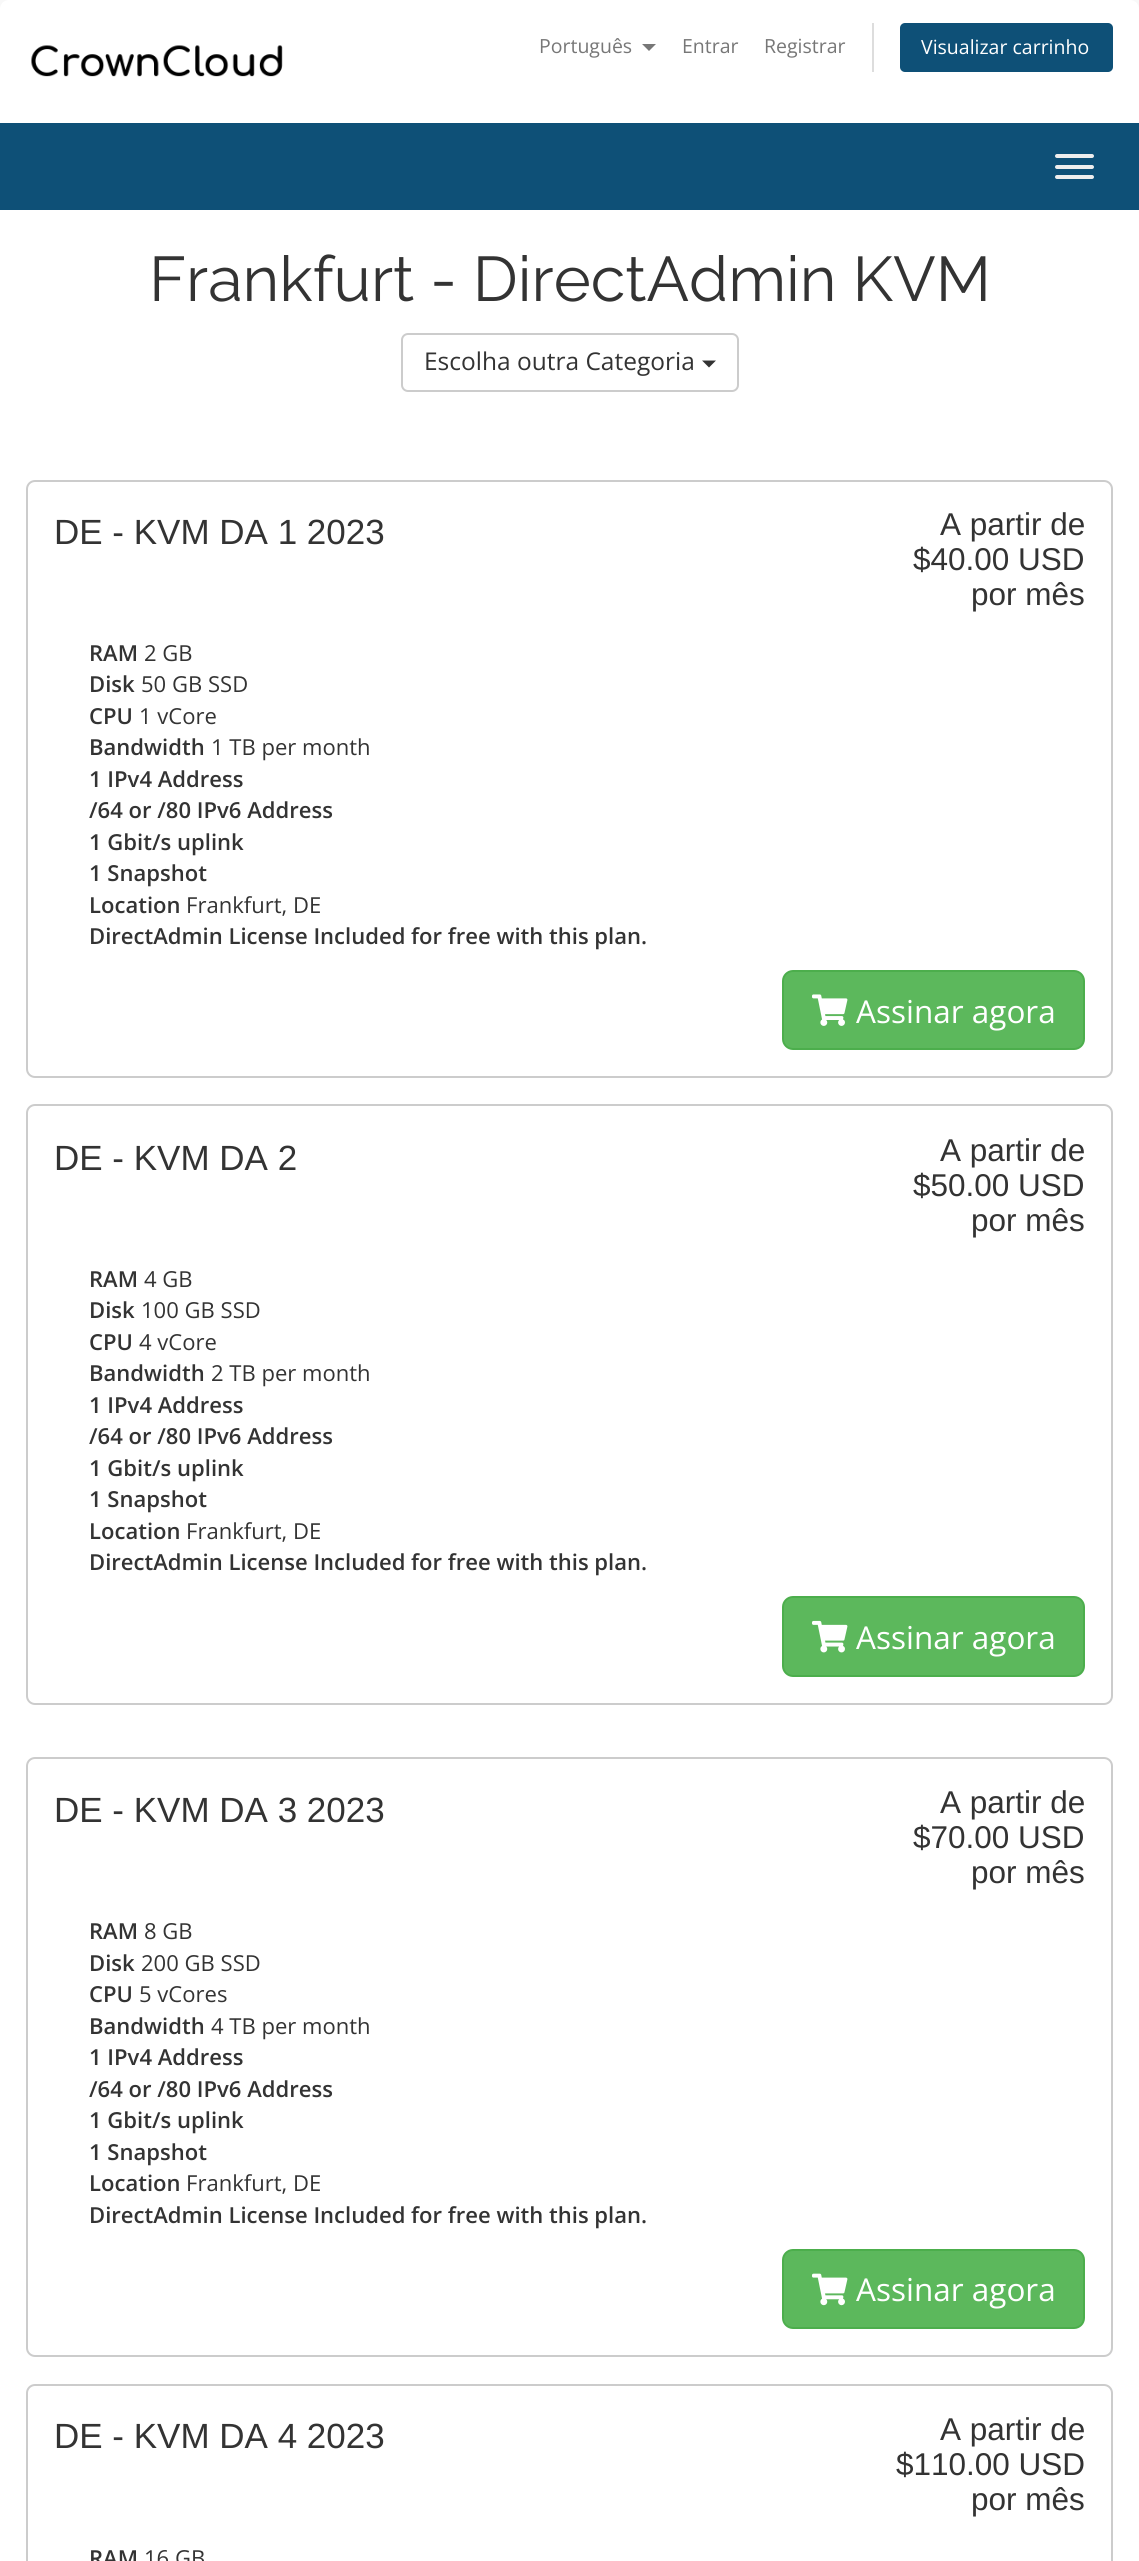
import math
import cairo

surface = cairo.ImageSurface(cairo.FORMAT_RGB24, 1139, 2561)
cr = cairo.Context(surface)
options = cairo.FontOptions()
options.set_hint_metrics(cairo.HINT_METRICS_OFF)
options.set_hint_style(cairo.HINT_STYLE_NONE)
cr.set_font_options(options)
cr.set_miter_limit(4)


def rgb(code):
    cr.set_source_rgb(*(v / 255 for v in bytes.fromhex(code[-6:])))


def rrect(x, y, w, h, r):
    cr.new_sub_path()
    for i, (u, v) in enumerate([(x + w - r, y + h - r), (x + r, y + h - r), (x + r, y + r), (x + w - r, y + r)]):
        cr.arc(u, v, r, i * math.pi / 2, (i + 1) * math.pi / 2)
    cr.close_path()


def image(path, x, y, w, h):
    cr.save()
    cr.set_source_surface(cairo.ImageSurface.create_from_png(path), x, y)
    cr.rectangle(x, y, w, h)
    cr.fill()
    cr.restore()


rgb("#f8f8f8")
cr.paint()
rgb("#ffffff")
cr.new_path()
cr.move_to(9, 0)
cr.line_to(1130, 0)
cr.curve_to(1135, 0, 1139, 4, 1139, 9)
cr.line_to(1139, 123)
cr.line_to(0, 123)
cr.line_to(0, 9)
cr.curve_to(0, 4, 4, 0, 9, 0)
cr.close_path()
cr.fill()
image("img/1.png", 31, 45, 252, 32)
rgb("#777777")
cr.new_path()
cr.move_to(642, 44)
cr.line_to(656, 44)
cr.line_to(649, 51)
cr.close_path()
cr.fill()
rgb("#dddddd")
cr.rectangle(872, 23, 2, 49)
cr.fill()
rgb("#0e5077")
rrect(900, 23, 213, 49, 5)
cr.fill()
cr.rectangle(0, 123, 1139, 87)
cr.fill()
rgb("#eeeeee")
rrect(1055, 154, 39, 4, 2)
cr.fill()
rrect(1055, 165, 39, 4, 2)
cr.fill()
rrect(1055, 175, 39, 4, 2)
cr.fill()
rgb("#ffffff")
cr.rectangle(0, 210, 1139, 2351)
cr.fill()
rrect(402, 334, 336, 57, 6)
rgb("#cccccc")
cr.stroke()
rgb("#333333")
cr.new_path()
cr.move_to(702, 360.5)
cr.line_to(716, 360.5)
cr.line_to(709, 367.5)
cr.close_path()
cr.fill()
rrect(27, 481, 1085, 596, 8)
rgb("#cccccc")
cr.stroke()
rgb("#5cb85c")
rrect(783, 971, 301, 78, 10)
cr.fill_preserve()
rgb("#4cae4c")
cr.stroke()
image("img/2.png", 812, 994, 36, 32)
rrect(27, 1105, 1085, 599, 8)
rgb("#cccccc")
cr.stroke()
rgb("#5cb85c")
rrect(783, 1597, 301, 79, 10)
cr.fill_preserve()
rgb("#4cae4c")
cr.stroke()
image("img/3.png", 812, 1620, 36, 33)
rrect(27, 1758, 1085, 598, 8)
rgb("#cccccc")
cr.stroke()
rgb("#5cb85c")
rrect(783, 2250, 301, 78, 10)
cr.fill_preserve()
rgb("#4cae4c")
cr.stroke()
image("img/4.png", 812, 2273, 36, 33)
rrect(27, 2385, 1085, 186, 8)
rgb("#cccccc")
cr.stroke()
cr.select_font_face("Open Sans")
cr.set_font_size(19.5)
rgb("#777777")
for x, y, s in [
    (539, 53, "Português"),
    (682, 53, "Entrar"),
    (764, 53, "Registrar"),
]:
    cr.move_to(x, y)
    cr.show_text(s)
rgb("#ffffff")
cr.move_to(921, 54)
cr.show_text("Visualizar carrinho")
cr.select_font_face("Raleway")
cr.set_font_size(63)
rgb("#333333")
cr.move_to(149, 301)
cr.show_text("Frankfurt - DirectAdmin KVM")
cr.select_font_face("Open Sans")
cr.set_font_size(24.5)
cr.move_to(424, 370)
cr.show_text("Escolha outra Categoria")
cr.select_font_face("Liberation Sans")
cr.set_font_size(35)
cr.move_to(54, 544)
cr.show_text("DE - KVM DA 1 2023")
cr.set_font_size(31.5)
for x, y, s in [
    (940, 535, "A partir de"),
    (913, 570, "$40.00 USD"),
    (971, 605, "por mês"),
]:
    cr.move_to(x, y)
    cr.show_text(s)
cr.select_font_face("Open Sans SemiBold")
cr.set_font_size(22.05)
cr.move_to(89, 661)
cr.show_text("RAM")
cr.select_font_face("Open Sans")
cr.move_to(144, 661)
cr.show_text("2 GB")
cr.select_font_face("Open Sans SemiBold")
cr.move_to(89, 692)
cr.show_text("Disk")
cr.select_font_face("Open Sans")
cr.move_to(141, 692)
cr.show_text("50 GB SSD")
cr.select_font_face("Open Sans SemiBold")
cr.move_to(89, 724)
cr.show_text("CPU")
cr.select_font_face("Open Sans")
cr.move_to(139, 724)
cr.show_text("1 vCore")
cr.select_font_face("Open Sans SemiBold")
cr.move_to(89, 755)
cr.show_text("Bandwidth")
cr.select_font_face("Open Sans")
cr.move_to(211, 755)
cr.show_text("1 TB per month")
cr.select_font_face("Open Sans SemiBold")
for x, y, s in [
    (89, 787, "1 IPv4 Address"),
    (89, 818, "/64 or /80 IPv6 Address"),
    (89, 850, "1 Gbit/s uplink"),
    (89, 881, "1 Snapshot"),
    (89, 913, "Location"),
]:
    cr.move_to(x, y)
    cr.show_text(s)
cr.select_font_face("Open Sans")
cr.move_to(186, 913)
cr.show_text("Frankfurt, DE")
cr.select_font_face("Open Sans SemiBold")
cr.move_to(89, 944)
cr.show_text("DirectAdmin License Included for free with this plan.")
cr.select_font_face("Open Sans")
cr.set_font_size(31.5)
rgb("#ffffff")
cr.move_to(856, 1023)
cr.show_text("Assinar agora")
cr.select_font_face("Liberation Sans")
cr.set_font_size(35)
rgb("#333333")
cr.move_to(54, 1170)
cr.show_text("DE - KVM DA 2")
cr.set_font_size(31.5)
for x, y, s in [
    (940, 1161, "A partir de"),
    (913, 1196, "$50.00 USD"),
    (971, 1231, "por mês"),
]:
    cr.move_to(x, y)
    cr.show_text(s)
cr.select_font_face("Open Sans SemiBold")
cr.set_font_size(22.05)
cr.move_to(89, 1287)
cr.show_text("RAM")
cr.select_font_face("Open Sans")
cr.move_to(144, 1287)
cr.show_text("4 GB")
cr.select_font_face("Open Sans SemiBold")
cr.move_to(89, 1318)
cr.show_text("Disk")
cr.select_font_face("Open Sans")
cr.move_to(141, 1318)
cr.show_text("100 GB SSD")
cr.select_font_face("Open Sans SemiBold")
cr.move_to(89, 1350)
cr.show_text("CPU")
cr.select_font_face("Open Sans")
cr.move_to(139, 1350)
cr.show_text("4 vCore")
cr.select_font_face("Open Sans SemiBold")
cr.move_to(89, 1381)
cr.show_text("Bandwidth")
cr.select_font_face("Open Sans")
cr.move_to(211, 1381)
cr.show_text("2 TB per month")
cr.select_font_face("Open Sans SemiBold")
for x, y, s in [
    (89, 1413, "1 IPv4 Address"),
    (89, 1444, "/64 or /80 IPv6 Address"),
    (89, 1476, "1 Gbit/s uplink"),
    (89, 1507, "1 Snapshot"),
    (89, 1539, "Location"),
]:
    cr.move_to(x, y)
    cr.show_text(s)
cr.select_font_face("Open Sans")
cr.move_to(186, 1539)
cr.show_text("Frankfurt, DE")
cr.select_font_face("Open Sans SemiBold")
cr.move_to(89, 1570)
cr.show_text("DirectAdmin License Included for free with this plan.")
cr.select_font_face("Open Sans")
cr.set_font_size(31.5)
rgb("#ffffff")
cr.move_to(856, 1649)
cr.show_text("Assinar agora")
cr.select_font_face("Liberation Sans")
cr.set_font_size(35)
rgb("#333333")
cr.move_to(54, 1822)
cr.show_text("DE - KVM DA 3 2023")
cr.set_font_size(31.5)
for x, y, s in [
    (940, 1813, "A partir de"),
    (913, 1848, "$70.00 USD"),
    (971, 1883, "por mês"),
]:
    cr.move_to(x, y)
    cr.show_text(s)
cr.select_font_face("Open Sans SemiBold")
cr.set_font_size(22.05)
cr.move_to(89, 1939)
cr.show_text("RAM")
cr.select_font_face("Open Sans")
cr.move_to(144, 1939)
cr.show_text("8 GB")
cr.select_font_face("Open Sans SemiBold")
cr.move_to(89, 1971)
cr.show_text("Disk")
cr.select_font_face("Open Sans")
cr.move_to(141, 1971)
cr.show_text("200 GB SSD")
cr.select_font_face("Open Sans SemiBold")
cr.move_to(89, 2002)
cr.show_text("CPU")
cr.select_font_face("Open Sans")
cr.move_to(139, 2002)
cr.show_text("5 vCores")
cr.select_font_face("Open Sans SemiBold")
cr.move_to(89, 2034)
cr.show_text("Bandwidth")
cr.select_font_face("Open Sans")
cr.move_to(211, 2034)
cr.show_text("4 TB per month")
cr.select_font_face("Open Sans SemiBold")
for x, y, s in [
    (89, 2065, "1 IPv4 Address"),
    (89, 2097, "/64 or /80 IPv6 Address"),
    (89, 2128, "1 Gbit/s uplink"),
    (89, 2160, "1 Snapshot"),
    (89, 2191, "Location"),
]:
    cr.move_to(x, y)
    cr.show_text(s)
cr.select_font_face("Open Sans")
cr.move_to(186, 2191)
cr.show_text("Frankfurt, DE")
cr.select_font_face("Open Sans SemiBold")
cr.move_to(89, 2223)
cr.show_text("DirectAdmin License Included for free with this plan.")
cr.select_font_face("Open Sans")
cr.set_font_size(31.5)
rgb("#ffffff")
cr.move_to(856, 2301)
cr.show_text("Assinar agora")
cr.select_font_face("Liberation Sans")
cr.set_font_size(35)
rgb("#333333")
cr.move_to(54, 2448)
cr.show_text("DE - KVM DA 4 2023")
cr.set_font_size(31.5)
for x, y, s in [
    (940, 2440, "A partir de"),
    (896, 2475, "$110.00 USD"),
    (971, 2510, "por mês"),
]:
    cr.move_to(x, y)
    cr.show_text(s)
cr.select_font_face("Open Sans SemiBold")
cr.set_font_size(22.05)
cr.move_to(89, 2566)
cr.show_text("RAM")
cr.select_font_face("Open Sans")
cr.move_to(144, 2566)
cr.show_text("16 GB")
surface.write_to_png("page.png")
